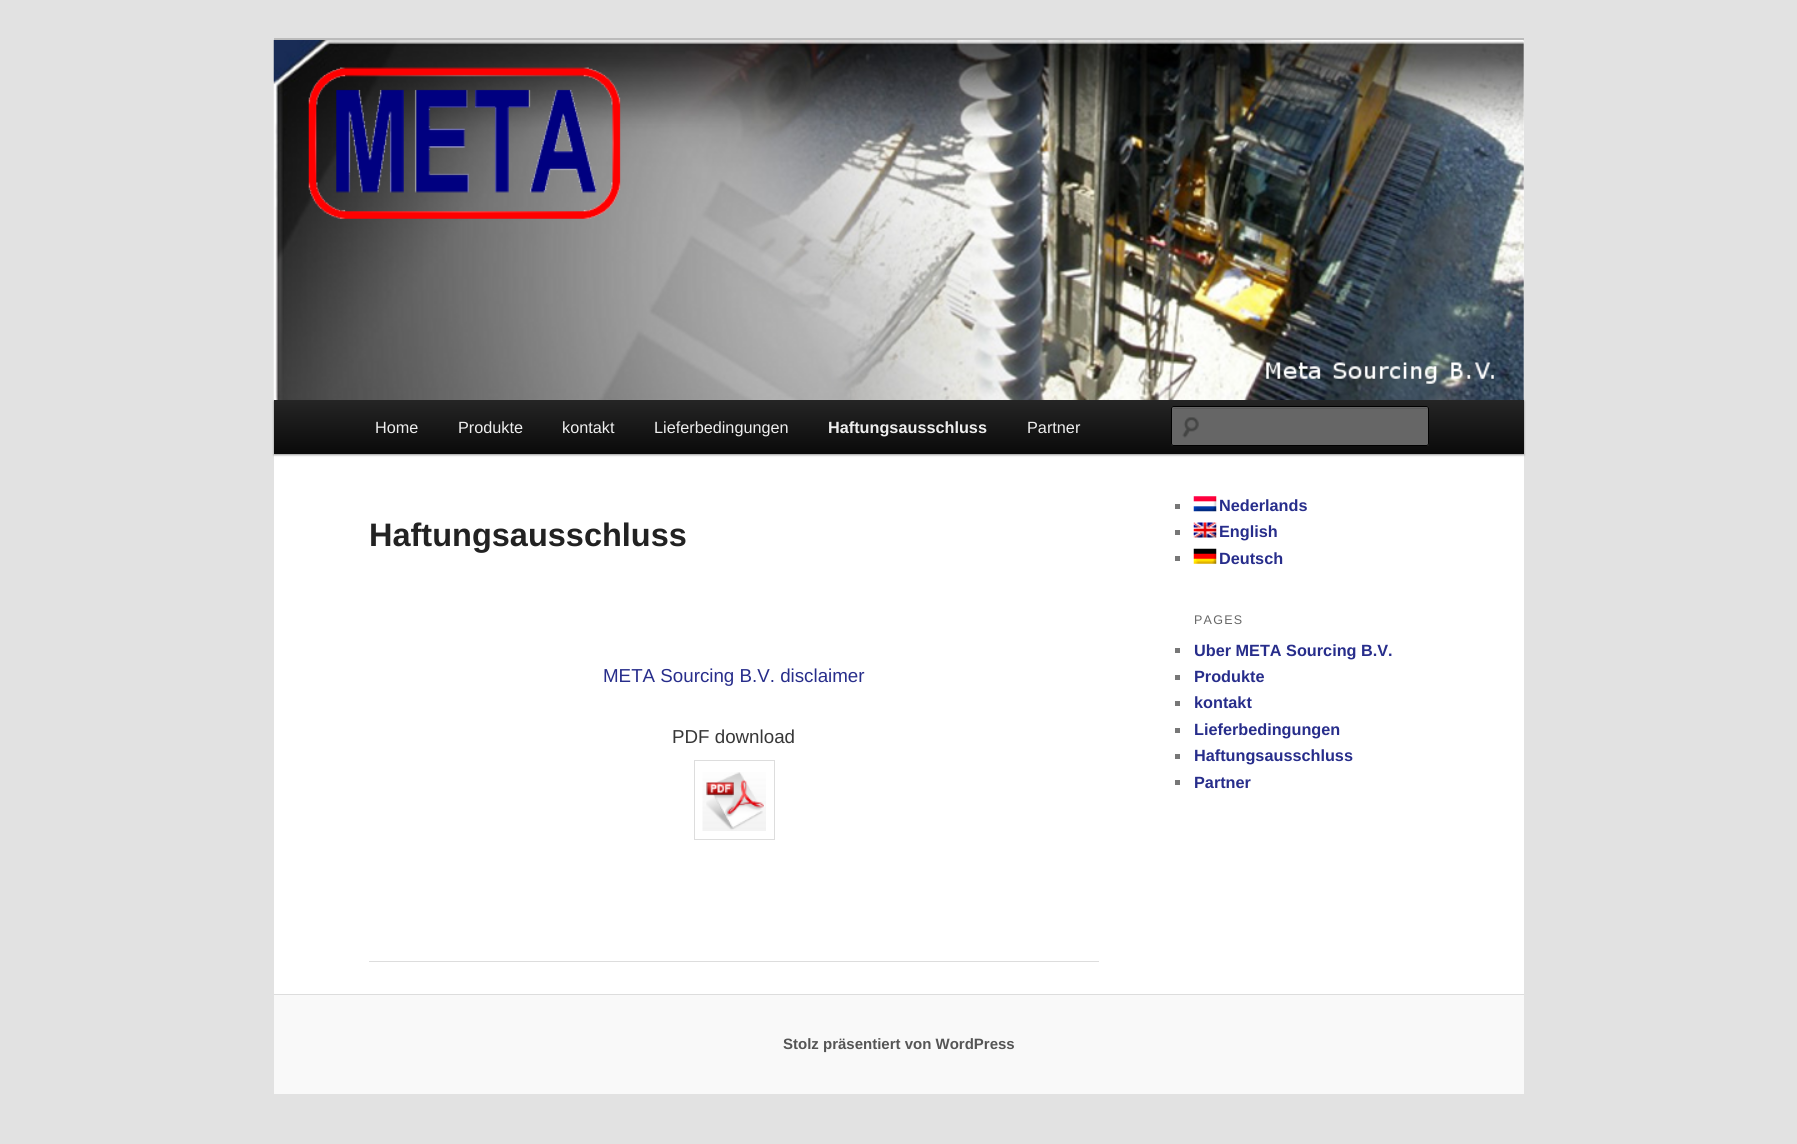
import math
import cairo

surface = cairo.ImageSurface(cairo.FORMAT_RGB24, 1797, 1144)
cr = cairo.Context(surface)
options = cairo.FontOptions()
options.set_hint_metrics(cairo.HINT_METRICS_OFF)
options.set_hint_style(cairo.HINT_STYLE_NONE)
cr.set_font_options(options)
cr.set_miter_limit(4)


def rgb(code):
    cr.set_source_rgb(*(v / 255 for v in bytes.fromhex(code[-6:])))


def tracked(x, y, s, letter, word):
    cr.move_to(x, y)
    for ch in s:
        cr.show_text(ch)
        cr.rel_move_to(letter + word * (ch == ' '), 0)


def rrect(x, y, w, h, r):
    cr.new_sub_path()
    for i, (u, v) in enumerate([(x + w - r, y + h - r), (x + r, y + h - r), (x + r, y + r), (x + w - r, y + r)]):
        cr.arc(u, v, r, i * math.pi / 2, (i + 1) * math.pi / 2)
    cr.close_path()


def soft_shadow(x, y, w, h, r, blur, alpha):
    cr.push_group_with_content(cairo.CONTENT_ALPHA)
    cr.set_operator(cairo.OPERATOR_SOURCE)
    for i in range(15, -16, -2):
        e = blur * i / 6
        if min(w, h) + 2 * e > 0:
            cr.set_source_rgba(0, 0, 0, alpha * math.erfc((i - 1) / 8.5) / 2)
            rrect(x - e, y - e, w + 2 * e, h + 2 * e, max(0, min(r + e + blur * .6, min(w, h) / 2 + e)))
            cr.fill()
    cr.mask(cr.pop_group())


def image(path, x, y, w, h):
    cr.save()
    cr.set_source_surface(cairo.ImageSurface.create_from_png(path), x, y)
    cr.rectangle(x, y, w, h)
    cr.fill()
    cr.restore()


rgb("#e2e2e2")
cr.paint()
rgb("#ffffff")
cr.rectangle(274, 41, 1250, 953)
cr.fill()
rgb("#bbbbbb")
cr.rectangle(274, 38, 1250, 3)
cr.fill()
rgb("#000000")
soft_shadow(274, 401, 1250, 54, 0, 1, 0.4)
image("img/1.png", 273, 40, 1251, 360)
gradient = cairo.LinearGradient(899, 400, 899, 454)
gradient.add_color_stop_rgba(0, 0.145, 0.145, 0.145, 1)
gradient.add_color_stop_rgba(1, 0.039, 0.039, 0.039, 1)
cr.set_source(gradient)
cr.rectangle(274, 400, 1250, 54)
cr.fill()
rgb("#666666")
rrect(1171, 406, 258, 40, 2.5)
cr.fill()
image("img/2.png", 1182, 417, 17, 21)
rgb("#5c5c5c")
cr.new_path()
cr.move_to(1174, 409)
cr.line_to(1426, 409)
cr.curve_to(1427, 409, 1428, 409, 1428, 410)
cr.line_to(1428, 408)
cr.line_to(1174, 408)
cr.line_to(1173, 409)
cr.close_path()
cr.fill()
rrect(1171.5, 406.5, 257, 39, 2)
rgb("#000000")
cr.set_line_width(1)
cr.stroke()
rgb("#dddddd")
cr.rectangle(369, 961, 730, 1)
cr.fill()
cr.rectangle(694.5, 760.5, 80, 79)
cr.stroke()
image("img/3.png", 702, 772, 64, 59)
rgb("#777777")
cr.rectangle(1175, 504, 5, 5)
cr.fill()
image("img/4.png", 1193, 496, 24, 16)
cr.rectangle(1175, 530, 5, 5)
cr.fill()
image("img/5.png", 1193, 522, 24, 16)
cr.rectangle(1175, 556, 5, 5)
cr.fill()
image("img/6.png", 1193, 548, 24, 16)
for x, y, w, h, color in [
    (1175, 648, 5, 5, "#777777"),
    (1175, 675, 5, 5, "#777777"),
    (1175, 701, 5, 5, "#777777"),
    (1175, 728, 5, 5, "#777777"),
    (1175, 754, 5, 5, "#777777"),
    (1175, 780, 5, 5, "#777777"),
    (274, 995, 1250, 99, "#f9f9f9"),
    (274, 994, 1250, 1, "#dddddd"),
]:
    rgb(color)
    cr.rectangle(x, y, w, h)
    cr.fill()
cr.select_font_face("Liberation Sans")
cr.set_font_size(16.25)
rgb("#eeeeee")
for x, y, s in [
    (375, 433, "Home"),
    (458, 433, "Produkte"),
    (562, 433, "kontakt"),
    (654, 433, "Lieferbedingungen"),
]:
    cr.move_to(x, y)
    cr.show_text(s)
cr.select_font_face("Liberation Sans", cairo.FONT_SLANT_NORMAL, cairo.FONT_WEIGHT_BOLD)
cr.move_to(828, 433)
cr.show_text("Haftungsausschluss")
cr.select_font_face("Liberation Sans")
cr.move_to(1027, 433)
cr.show_text("Partner")
cr.select_font_face("Liberation Sans", cairo.FONT_SLANT_NORMAL, cairo.FONT_WEIGHT_BOLD)
cr.set_font_size(32.5)
rgb("#222222")
cr.move_to(369, 546)
cr.show_text("Haftungsausschluss")
cr.select_font_face("Liberation Sans")
cr.set_font_size(18.75)
rgb("#272d8b")
cr.move_to(603, 682)
cr.show_text("META Sourcing B.V. disclaimer")
rgb("#373737")
cr.move_to(672, 743)
cr.show_text("PDF download")
cr.select_font_face("Liberation Sans", cairo.FONT_SLANT_NORMAL, cairo.FONT_WEIGHT_BOLD)
cr.set_font_size(16.25)
rgb("#272d8b")
for x, y, s in [
    (1219, 511, "Nederlands"),
    (1219, 537, "English"),
    (1219, 564, "Deutsch"),
]:
    cr.move_to(x, y)
    cr.show_text(s)
cr.select_font_face("Liberation Sans")
cr.set_font_size(12.5)
rgb("#666666")
tracked(1194, 624, "PAGES", 1.25, 0)
cr.select_font_face("Liberation Sans", cairo.FONT_SLANT_NORMAL, cairo.FONT_WEIGHT_BOLD)
cr.set_font_size(16.25)
rgb("#272d8b")
for x, y, s in [
    (1194, 656, "Uber META Sourcing B.V."),
    (1194, 682, "Produkte"),
    (1194, 708, "kontakt"),
    (1194, 735, "Lieferbedingungen"),
    (1194, 761, "Haftungsausschluss"),
    (1194, 788, "Partner"),
]:
    cr.move_to(x, y)
    cr.show_text(s)
cr.set_font_size(15)
rgb("#555555")
cr.move_to(783, 1049)
cr.show_text("Stolz präsentiert von WordPress")
surface.write_to_png("page.png")
